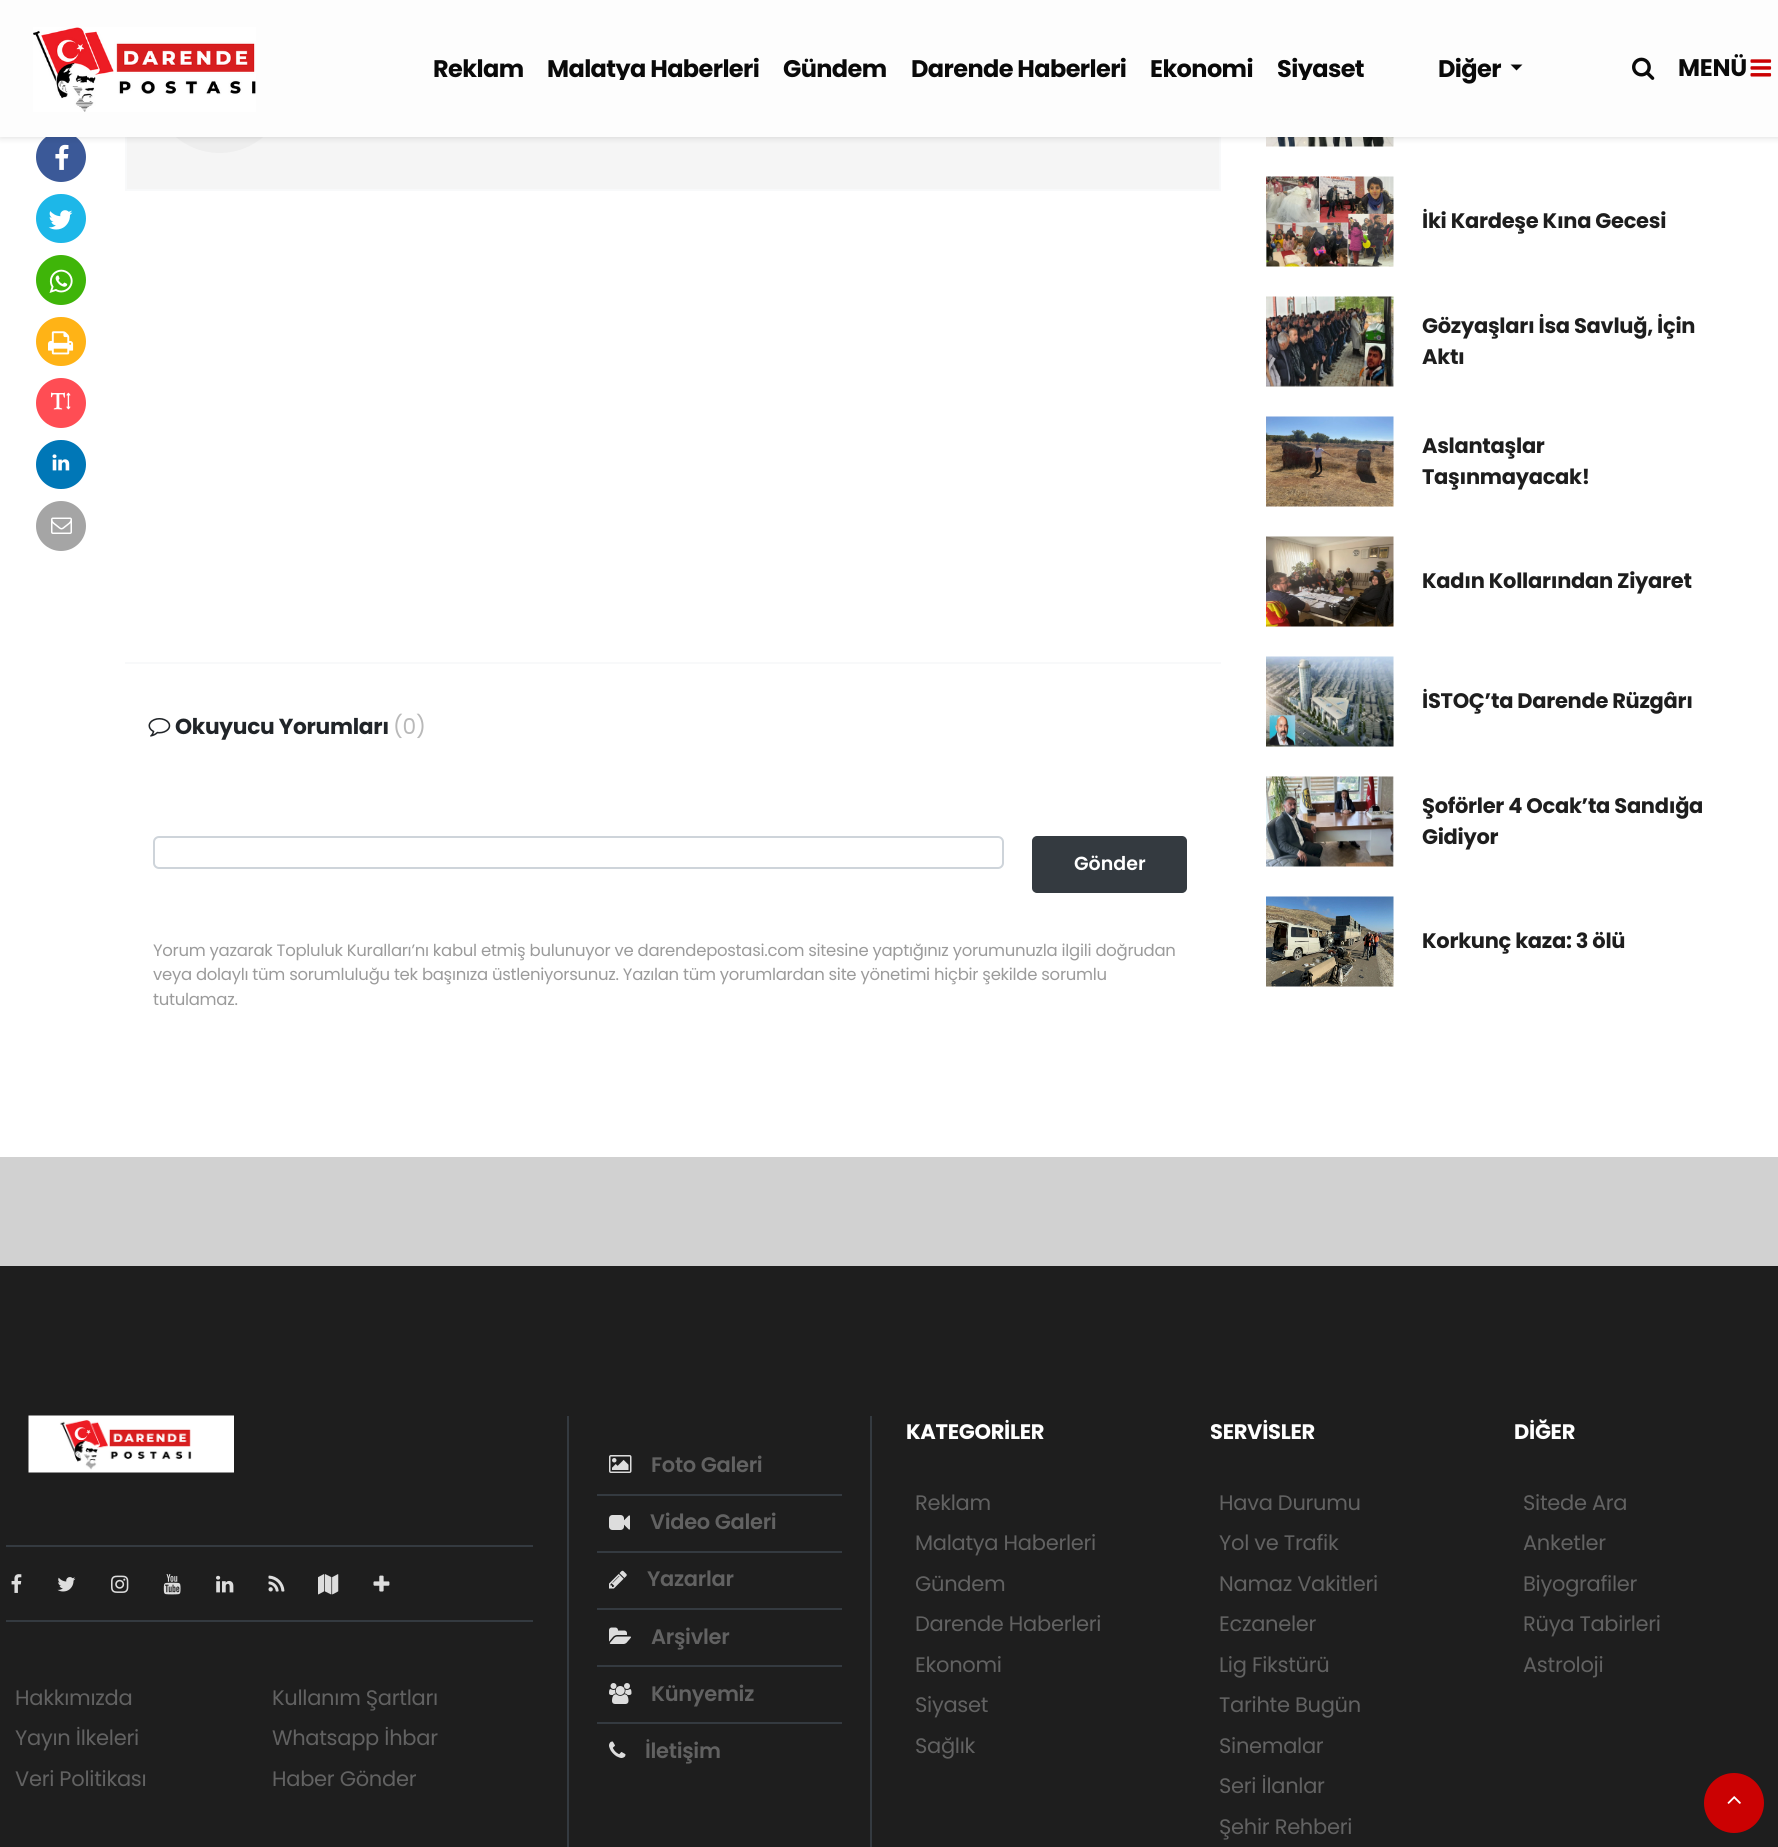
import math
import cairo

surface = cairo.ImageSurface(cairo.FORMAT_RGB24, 1778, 1847)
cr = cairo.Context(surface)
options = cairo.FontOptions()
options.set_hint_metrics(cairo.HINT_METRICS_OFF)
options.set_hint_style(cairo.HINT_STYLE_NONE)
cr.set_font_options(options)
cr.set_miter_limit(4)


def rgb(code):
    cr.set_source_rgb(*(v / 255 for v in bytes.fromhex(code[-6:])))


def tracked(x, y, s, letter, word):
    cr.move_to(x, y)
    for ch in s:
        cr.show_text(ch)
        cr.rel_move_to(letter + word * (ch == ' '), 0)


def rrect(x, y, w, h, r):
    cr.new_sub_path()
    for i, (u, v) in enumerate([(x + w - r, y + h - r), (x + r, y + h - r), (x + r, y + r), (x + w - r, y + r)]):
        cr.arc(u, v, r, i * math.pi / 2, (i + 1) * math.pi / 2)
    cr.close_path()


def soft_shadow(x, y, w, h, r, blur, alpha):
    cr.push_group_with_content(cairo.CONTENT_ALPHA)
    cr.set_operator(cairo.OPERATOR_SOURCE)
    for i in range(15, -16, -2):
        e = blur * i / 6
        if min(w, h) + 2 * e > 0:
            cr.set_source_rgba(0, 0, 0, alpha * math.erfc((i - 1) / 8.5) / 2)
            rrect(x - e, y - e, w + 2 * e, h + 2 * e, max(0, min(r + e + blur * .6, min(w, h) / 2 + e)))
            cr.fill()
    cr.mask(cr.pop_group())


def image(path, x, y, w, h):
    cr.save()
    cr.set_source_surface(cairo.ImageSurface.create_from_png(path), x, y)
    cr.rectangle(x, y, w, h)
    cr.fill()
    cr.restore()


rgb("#d1d1d1")
cr.paint()
rgb("#ffffff")
cr.rectangle(0, 137, 1778, 1020)
cr.fill()
rgb("#3b5998")
cr.arc(61, 157, 25, 0, 2 * math.pi)
cr.fill()
image("img/4.png", 55, 144, 14, 26)
rgb("#f5f5f5")
cr.rectangle(127, 137, 1092, 52)
cr.fill()
cr.rectangle(126, -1, 1094, 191)
rgb("#f8f9fa")
cr.stroke()
rgb("#eeeeee")
cr.arc(219.5, 85.5, 67.5, 0, 2 * math.pi)
cr.fill()
image("img/12.png", 1266, 137, 128, 10)
rgb("#000000")
soft_shadow(0, 0, 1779, 137, 0, 4, 0.15)
rgb("#fdfdfd")
cr.rectangle(0, 0, 1778, 137)
cr.fill()
image("img/1.png", 33, 27, 223, 85)
rgb("#0a0a0a")
cr.new_path()
cr.move_to(1510.5, 64.5)
cr.line_to(1522.5, 64.5)
cr.line_to(1516.5, 70.5)
cr.close_path()
cr.fill()
image("img/2.png", 1632, 57, 23, 23)
image("img/3.png", 1750, 59, 22, 18)
rgb("#1db7e8")
rrect(36, 194, 50, 49, 24.5)
cr.fill()
image("img/5.png", 48, 210, 25, 20)
rgb("#3fb509")
cr.arc(61, 280, 25, 0, 2 * math.pi)
cr.fill()
image("img/6.png", 49, 269, 24, 24)
rgb("#ffb316")
rrect(36, 317, 50, 49, 24.5)
cr.fill()
image("img/7.png", 48, 331, 26, 24)
rgb("#ff4d54")
cr.arc(61, 403, 25, 0, 2 * math.pi)
cr.fill()
image("img/8.png", 51, 392, 20, 18)
rgb("#0077b7")
rrect(36, 440, 50, 49, 24.5)
cr.fill()
image("img/9.png", 52, 454, 18, 17)
rgb("#a5a5a5")
cr.arc(61, 526, 25, 0, 2 * math.pi)
cr.fill()
image("img/10.png", 51, 517, 21, 17)
rgb("#f8f9fa")
cr.rectangle(125, 662, 1096, 2)
cr.fill()
image("img/11.png", 148, 718, 23, 19)
rrect(154, 837, 849, 31, 5)
rgb("#ced4da")
cr.stroke()
rgb("#343a40")
rrect(1033, 837, 153, 55, 4)
cr.fill_preserve()
cr.stroke()
image("img/13.png", 1266, 176, 128, 91)
image("img/14.png", 1266, 296, 128, 91)
image("img/15.png", 1266, 416, 128, 91)
image("img/16.png", 1266, 536, 128, 91)
image("img/17.png", 1266, 656, 128, 91)
image("img/18.png", 1266, 776, 128, 91)
image("img/19.png", 1266, 896, 128, 91)
rgb("#1e1e1e")
cr.rectangle(0, 1266, 1778, 581)
cr.fill()
rgb("#343a40")
cr.rectangle(6, 1545, 527, 2)
cr.fill()
image("img/20.png", 28, 1415, 206, 58)
cr.rectangle(6, 1620, 527, 2)
cr.fill()
image("img/21.png", 11, 1574, 11, 19)
image("img/22.png", 57, 1577, 19, 15)
image("img/23.png", 111, 1575, 18, 18)
image("img/24.png", 163, 1574, 18, 21)
image("img/25.png", 216, 1575, 18, 18)
image("img/26.png", 268, 1575, 17, 17)
image("img/27.png", 318, 1574, 21, 21)
image("img/28.png", 373, 1575, 17, 17)
for x, y, w, h, color in [
    (870, 1416, 2, 431, "#343a40"),
    (567, 1416, 2, 431, "#343a40"),
    (597, 1494, 245, 2, "#343a40"),
]:
    rgb(color)
    cr.rectangle(x, y, w, h)
    cr.fill()
image("img/29.png", 609, 1455, 23, 18)
cr.rectangle(597, 1551, 245, 2)
cr.fill()
image("img/30.png", 609, 1515, 21, 15)
cr.rectangle(597, 1608, 245, 2)
cr.fill()
image("img/31.png", 609, 1570, 18, 19)
cr.rectangle(597, 1665, 245, 2)
cr.fill()
image("img/32.png", 609, 1627, 22, 17)
cr.rectangle(597, 1722, 245, 2)
cr.fill()
image("img/33.png", 609, 1683, 23, 21)
image("img/34.png", 609, 1741, 17, 17)
rgb("#cb0102")
cr.arc(1734, 1803, 30, 0, 2 * math.pi)
cr.fill()
image("img/35.png", 1727, 1796, 14, 8)
cr.select_font_face("Poppins", cairo.FONT_SLANT_NORMAL, cairo.FONT_WEIGHT_BOLD)
cr.set_font_size(24)
rgb("#0a0a0a")
tracked(433, 77, "Reklam", -0.6, 0)
cr.save()
cr.rectangle(408, 50, 1005, 30)
cr.clip()
tracked(547, 77, "Malatya Haberleri", -0.6, 0)
cr.restore()
for x, y, s in [
    (783, 77, "Gündem"),
    (911, 77, "Darende Haberleri"),
    (1150, 77, "Ekonomi"),
]:
    tracked(x, y, s, -0.6, 0)
cr.save()
cr.rectangle(408, 50, 1005, 30)
cr.clip()
tracked(1277, 77, "Siyaset", -0.6, 0)
cr.restore()
tracked(1438, 77, "Diğer", -0.6, 0)
tracked(1678, 76, "MENÜ", -0.29, 0)
cr.set_font_size(21.75)
rgb("#212529")
tracked(175, 734, "Okuyucu Yorumları", -0.29, 0)
cr.select_font_face("Poppins")
rgb("#b9b9b9")
tracked(393, 734, "(0)", -0.29, 0)
cr.select_font_face("Poppins SemiBold")
cr.set_font_size(19)
rgb("#ffffff")
cr.move_to(1074, 870)
cr.show_text("Gönder")
cr.select_font_face("Poppins")
cr.set_font_size(16.5)
rgb("#9b9b9b")
for x, y, s in [
    (153, 956, "Yorum yazarak Topluluk Kuralları’nı kabul etmiş bulunuyor ve darendepostasi.com sitesine yaptığınız yorumunuzla ilgili doğrudan"),
    (153, 980, "veya dolaylı tüm sorumluluğu tek başınıza üstleniyorsunuz. Yazılan tüm yorumlardan site yönetimi hiçbir şekilde sorumlu"),
    (153, 1005, "tutulamaz."),
]:
    tracked(x, y, s, -0.29, 0)
cr.select_font_face("Poppins", cairo.FONT_SLANT_NORMAL, cairo.FONT_WEIGHT_BOLD)
cr.set_font_size(21)
rgb("#1e1e1e")
for x, y, s in [
    (1422, 228, "İki Kardeşe Kına Gecesi"),
    (1422, 333, "Gözyaşları İsa Savluğ, İçin"),
    (1422, 364, "Aktı"),
    (1422, 453, "Aslantaşlar"),
    (1422, 484, "Taşınmayacak!"),
    (1422, 588, "Kadın Kollarından Ziyaret"),
    (1422, 708, "İSTOÇ’ta Darende Rüzgârı"),
    (1422, 813, "Şoförler 4 Ocak’ta Sandığa"),
    (1422, 844, "Gidiyor"),
    (1422, 948, "Korkunç kaza: 3 ölü"),
]:
    tracked(x, y, s, -0.29, 0)
cr.select_font_face("Poppins")
rgb("#626262")
for x, y, s in [
    (15, 1705, "Hakkımızda"),
    (15, 1745, "Yayın İlkeleri"),
    (15, 1786, "Veri Politikası"),
    (272, 1705, "Kullanım Şartları"),
    (272, 1745, "Whatsapp İhbar"),
    (272, 1786, "Haber Gönder"),
]:
    tracked(x, y, s, -0.29, 0)
cr.select_font_face("Poppins SemiBold")
for x, y, s in [
    (651, 1472, "Foto Galeri"),
    (650, 1529, "Video Galeri"),
    (647, 1586, "Yazarlar"),
    (651, 1644, "Arşivler"),
    (651, 1701, "Künyemiz"),
    (645, 1758, "İletişim"),
]:
    tracked(x, y, s, -0.29, 0)
cr.select_font_face("Poppins", cairo.FONT_SLANT_NORMAL, cairo.FONT_WEIGHT_BOLD)
rgb("#ffffff")
tracked(906, 1439, "KATEGORİLER", -0.29, 0)
cr.select_font_face("Poppins")
rgb("#626262")
for x, y, s in [
    (915, 1510, "Reklam"),
    (915, 1550, "Malatya Haberleri"),
    (915, 1591, "Gündem"),
    (915, 1631, "Darende Haberleri"),
    (915, 1672, "Ekonomi"),
    (915, 1712, "Siyaset"),
    (915, 1753, "Sağlık"),
]:
    tracked(x, y, s, -0.29, 0)
cr.select_font_face("Poppins", cairo.FONT_SLANT_NORMAL, cairo.FONT_WEIGHT_BOLD)
rgb("#ffffff")
tracked(1210, 1439, "SERVİSLER", -0.29, 0)
cr.select_font_face("Poppins")
rgb("#626262")
for x, y, s in [
    (1219, 1510, "Hava Durumu"),
    (1219, 1550, "Yol ve Trafik"),
    (1219, 1591, "Namaz Vakitleri"),
    (1219, 1631, "Eczaneler"),
    (1219, 1672, "Lig Fikstürü"),
    (1219, 1712, "Tarihte Bugün"),
    (1219, 1753, "Sinemalar"),
    (1219, 1793, "Seri İlanlar"),
    (1219, 1834, "Şehir Rehberi"),
]:
    tracked(x, y, s, -0.29, 0)
cr.select_font_face("Poppins", cairo.FONT_SLANT_NORMAL, cairo.FONT_WEIGHT_BOLD)
rgb("#ffffff")
tracked(1514, 1439, "DİĞER", -0.29, 0)
cr.select_font_face("Poppins")
rgb("#626262")
for x, y, s in [
    (1523, 1510, "Sitede Ara"),
    (1523, 1550, "Anketler"),
    (1523, 1591, "Biyografiler"),
    (1523, 1631, "Rüya Tabirleri"),
    (1523, 1672, "Astroloji"),
]:
    tracked(x, y, s, -0.29, 0)
surface.write_to_png("page.png")
